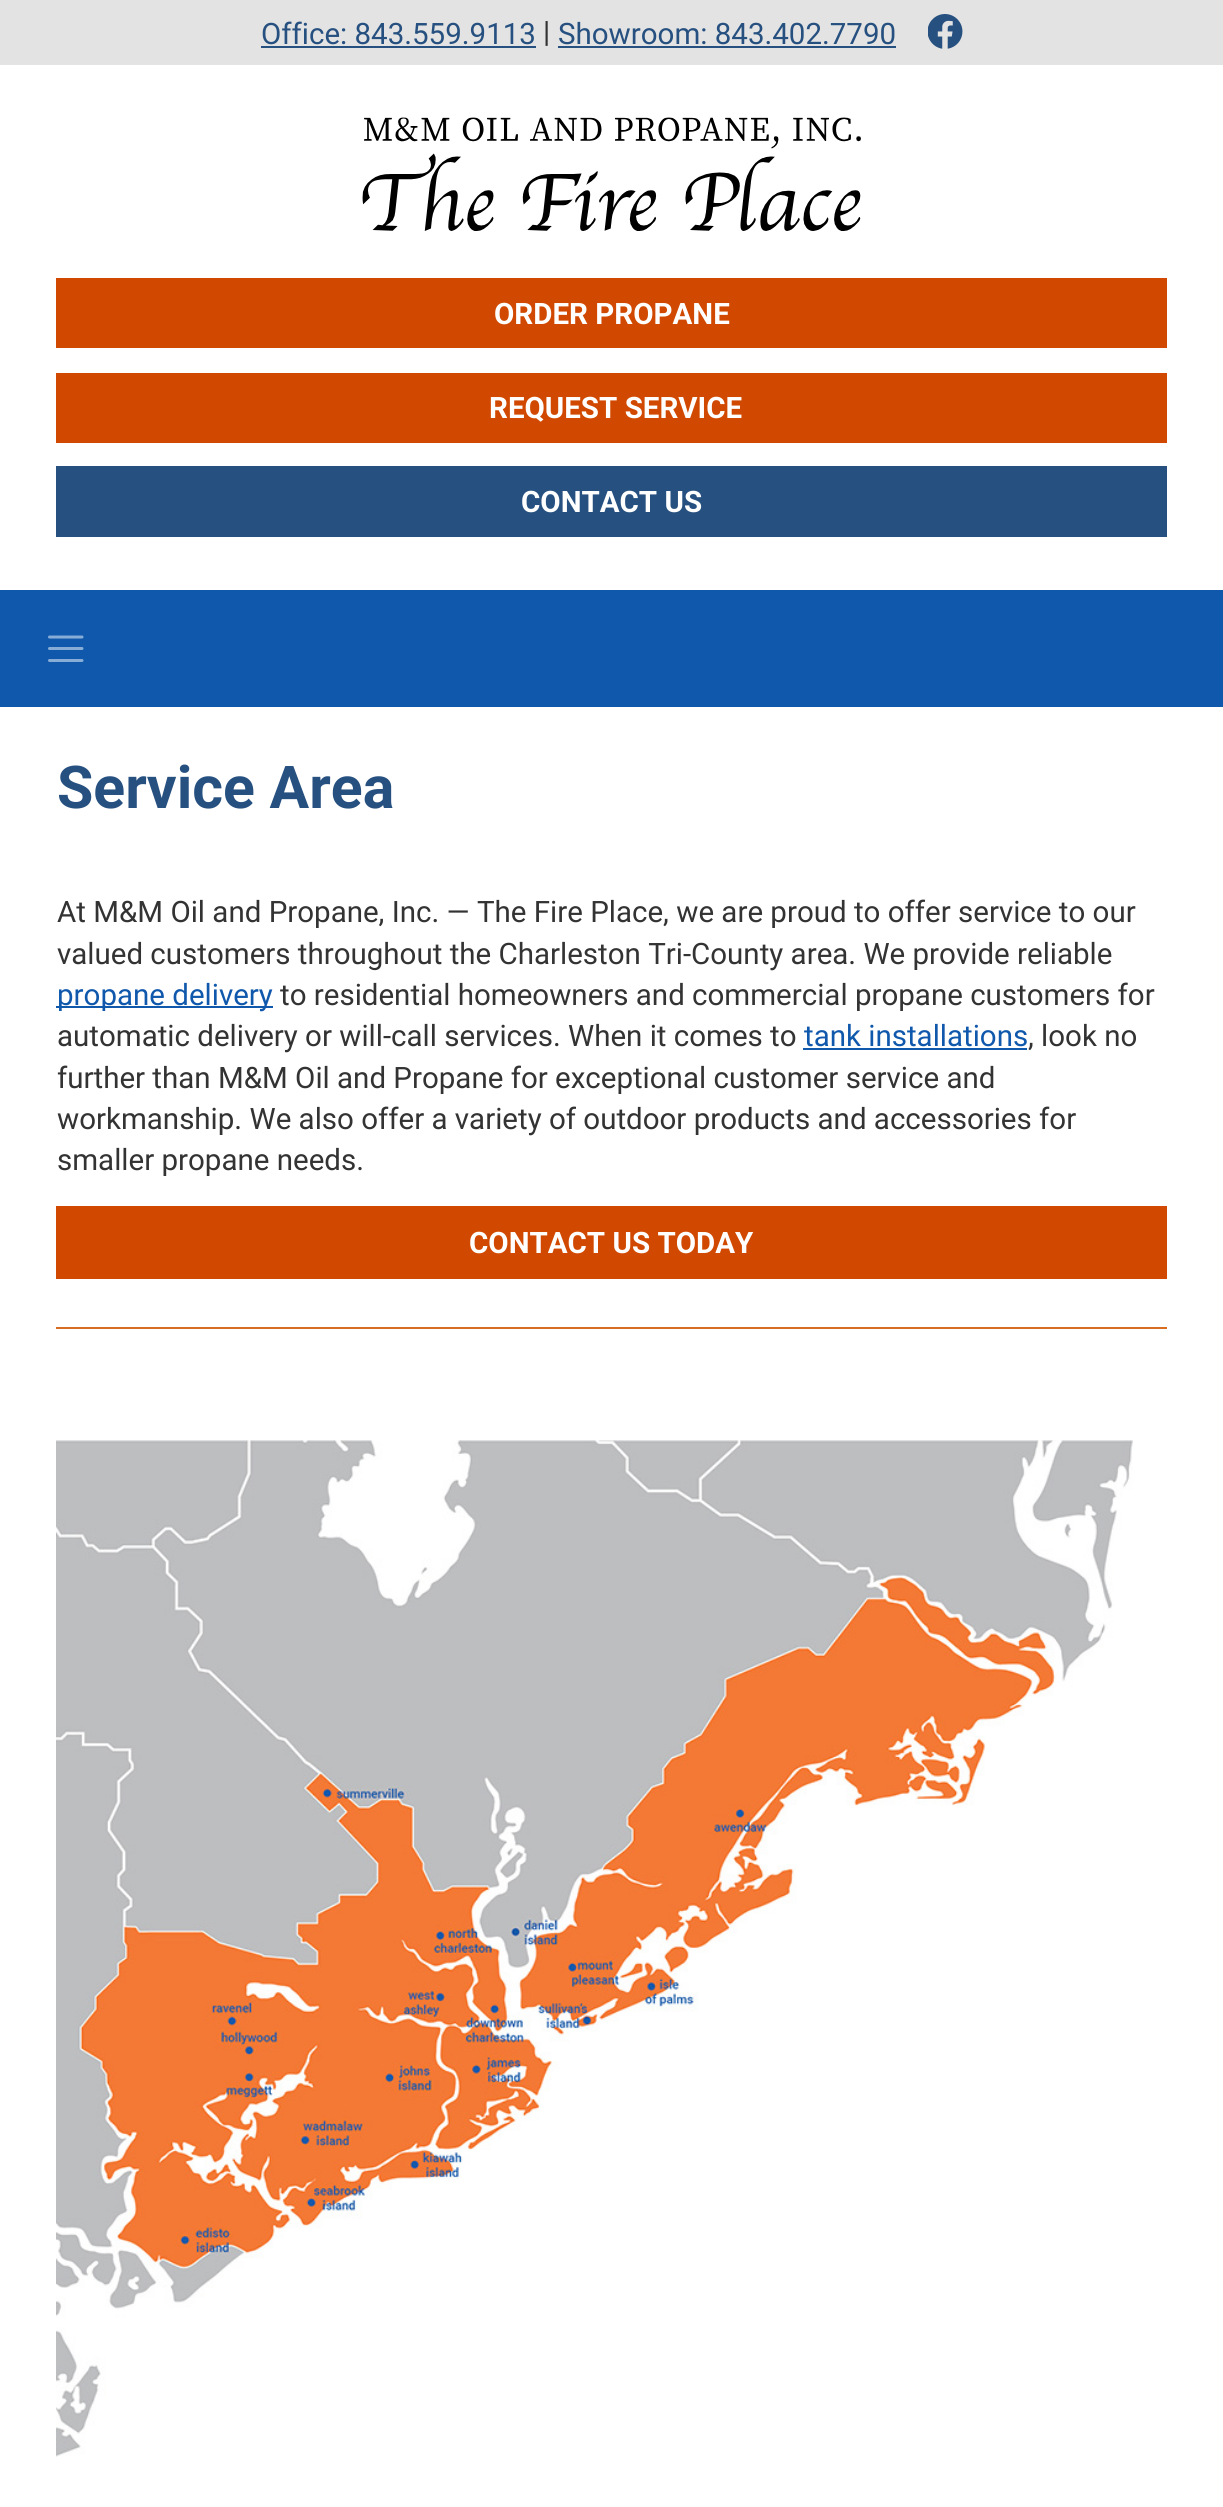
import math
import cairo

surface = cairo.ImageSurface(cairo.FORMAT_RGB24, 1223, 2507)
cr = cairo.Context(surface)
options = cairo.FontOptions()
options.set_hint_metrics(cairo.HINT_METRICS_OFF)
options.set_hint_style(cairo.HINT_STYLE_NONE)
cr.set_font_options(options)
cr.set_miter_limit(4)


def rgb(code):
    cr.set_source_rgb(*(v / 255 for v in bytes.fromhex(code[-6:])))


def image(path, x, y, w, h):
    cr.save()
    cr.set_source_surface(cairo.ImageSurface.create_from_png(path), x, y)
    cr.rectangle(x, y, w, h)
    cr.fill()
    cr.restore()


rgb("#ffffff")
cr.paint()
for x, y, w, h, color in [
    (0, 0, 1223, 65, "#e3e3e3"),
    (261, 46, 275, 2, "#265080"),
    (558, 46, 338, 2, "#265080"),
]:
    rgb(color)
    cr.rectangle(x, y, w, h)
    cr.fill()
image("img/1.png", 928, 14, 35, 35)
image("img/2.png", 362, 117, 499, 114)
for x, y, w, h, color in [
    (56, 278, 1111, 70, "#d14900"),
    (56, 373, 1111, 70, "#d14900"),
    (56, 466, 1111, 71, "#265080"),
    (0, 590, 1223, 117, "#0f58ac"),
]:
    rgb(color)
    cr.rectangle(x, y, w, h)
    cr.fill()
cr.new_path()
cr.move_to(49.5, 637)
cr.line_to(82, 637)
cr.move_to(49.5, 648.5)
cr.line_to(82, 648.5)
cr.move_to(49.5, 660.5)
cr.line_to(82, 660.5)
rgb("#87acd6")
cr.set_line_width(3)
cr.set_line_cap(cairo.LINE_CAP_ROUND)
cr.stroke()
for x, y, w, h, color in [
    (56, 1006, 217, 2, "#0f58ac"),
    (803, 1048, 224, 2, "#0f58ac"),
    (56, 1206, 1111, 73, "#d14900"),
    (56, 1327, 1111, 2, "#d86d21"),
]:
    rgb(color)
    cr.rectangle(x, y, w, h)
    cr.fill()
image("img/3.png", 56, 1440, 1077, 1017)
cr.select_font_face("Roboto")
cr.set_font_size(29.5)
rgb("#265080")
cr.move_to(261, 44)
cr.show_text("Office: 843.559.9113")
rgb("#333333")
cr.move_to(543, 42)
cr.show_text("|")
rgb("#265080")
cr.move_to(558, 44)
cr.show_text("Showroom: 843.402.7790")
cr.select_font_face("Roboto", cairo.FONT_SLANT_NORMAL, cairo.FONT_WEIGHT_BOLD)
rgb("#ffffff")
for x, y, s in [
    (494, 324, "ORDER PROPANE"),
    (489, 418, "REQUEST SERVICE"),
    (521, 512, "CONTACT US"),
]:
    cr.move_to(x, y)
    cr.show_text(s)
cr.set_font_size(59)
rgb("#265080")
cr.move_to(57, 808)
cr.show_text("Service Area")
cr.select_font_face("Roboto")
cr.set_font_size(29.5)
rgb("#333333")
cr.move_to(57, 922)
cr.show_text("At M&M Oil and Propane, Inc. — The Fire Place, we are proud to offer service to our")
cr.move_to(57, 964)
cr.show_text("valued customers throughout the Charleston Tri-County area. We provide reliable")
rgb("#0f58ac")
cr.move_to(57, 1005)
cr.show_text("propane delivery")
rgb("#333333")
cr.move_to(280, 1005)
cr.show_text("to residential homeowners and commercial propane customers for")
cr.move_to(57, 1046)
cr.show_text("automatic delivery or will-call services. When it comes to")
rgb("#0f58ac")
cr.move_to(804, 1046)
cr.show_text("tank installations")
rgb("#333333")
for x, y, s in [
    (1028, 1046, ", look no"),
    (57, 1088, "further than M&M Oil and Propane for exceptional customer service and"),
    (57, 1129, "workmanship. We also offer a variety of outdoor products and accessories for"),
    (57, 1170, "smaller propane needs."),
]:
    cr.move_to(x, y)
    cr.show_text(s)
cr.select_font_face("Roboto", cairo.FONT_SLANT_NORMAL, cairo.FONT_WEIGHT_BOLD)
rgb("#ffffff")
cr.move_to(469, 1253)
cr.show_text("CONTACT US TODAY")
surface.write_to_png("page.png")
